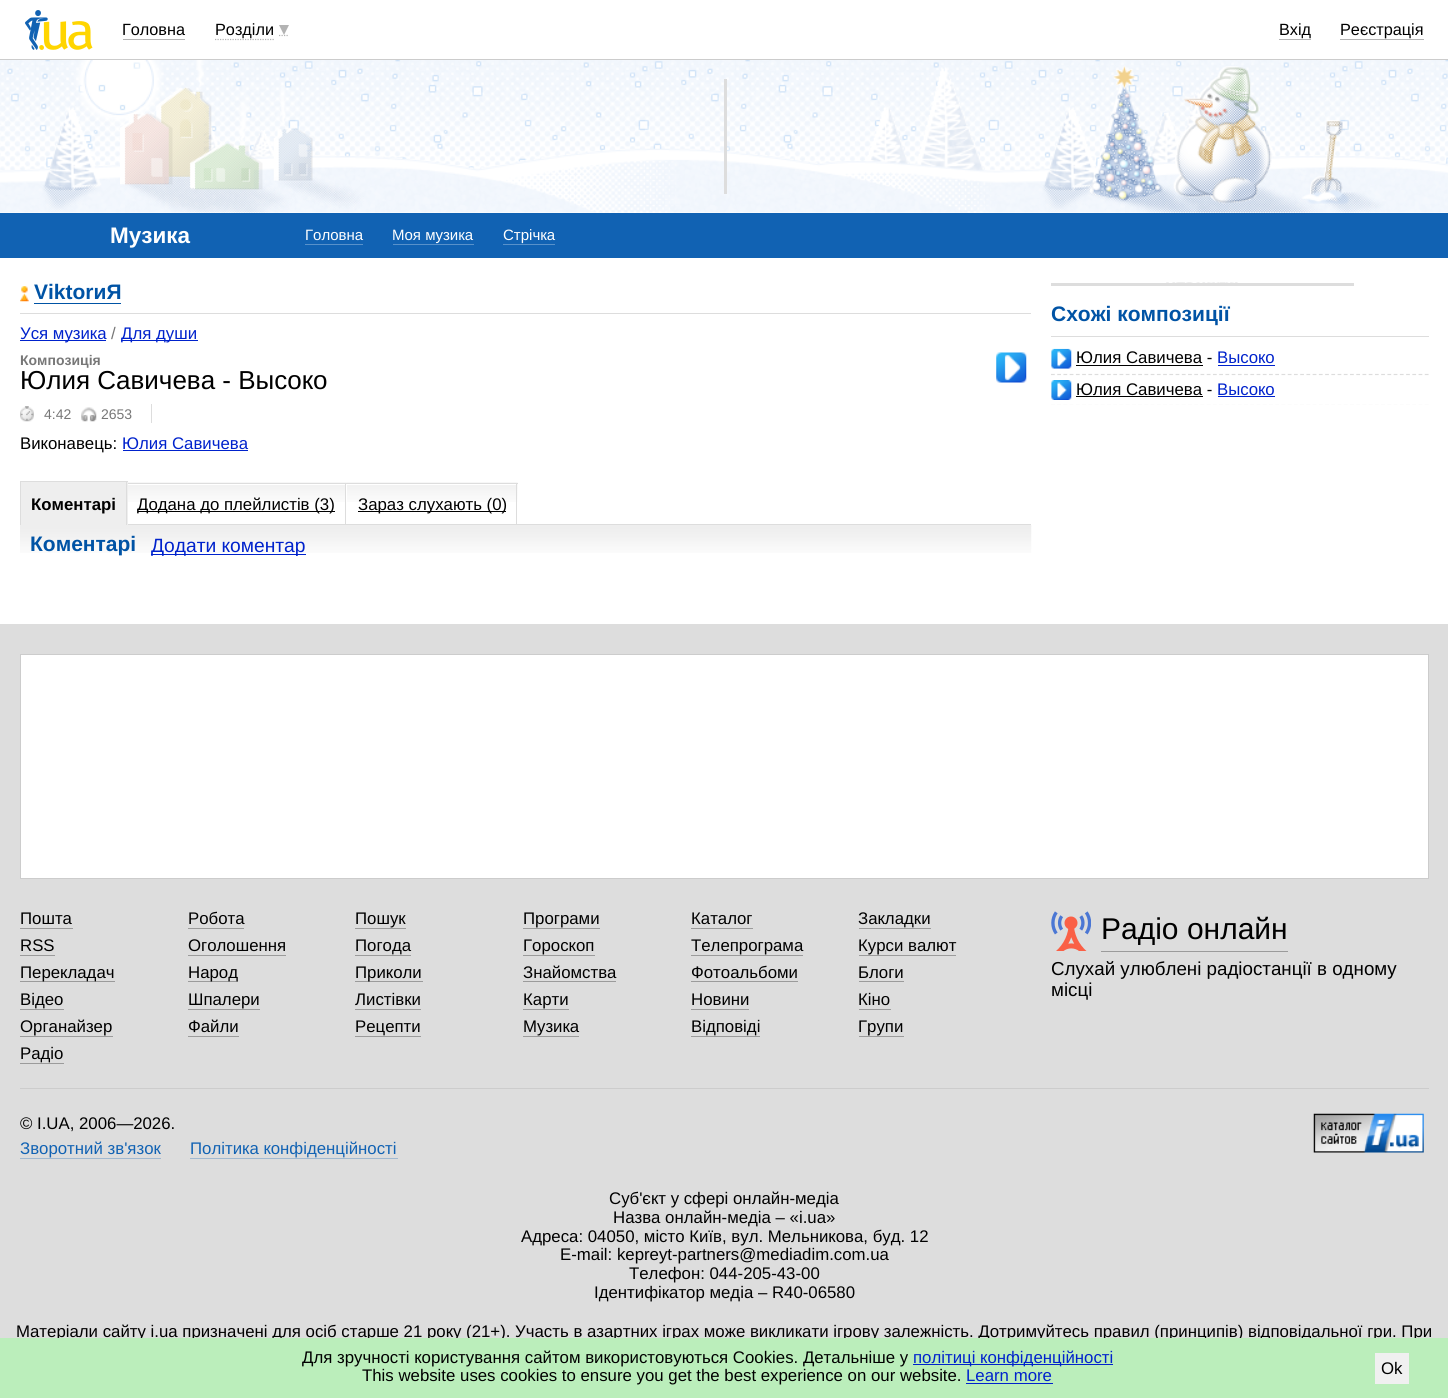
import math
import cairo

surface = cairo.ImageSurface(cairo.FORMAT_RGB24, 1448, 1398)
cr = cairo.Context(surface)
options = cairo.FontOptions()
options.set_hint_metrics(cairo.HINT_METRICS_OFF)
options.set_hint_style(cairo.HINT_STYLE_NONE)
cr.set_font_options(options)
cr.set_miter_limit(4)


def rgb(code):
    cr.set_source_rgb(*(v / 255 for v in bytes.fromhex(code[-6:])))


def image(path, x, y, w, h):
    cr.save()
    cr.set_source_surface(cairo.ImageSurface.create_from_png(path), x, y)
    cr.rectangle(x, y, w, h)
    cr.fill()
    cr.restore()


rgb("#ffffff")
cr.paint()
rgb("#cccccc")
cr.rectangle(0, 59, 1448, 1)
cr.fill()
image("img/1.png", 25, 10, 68, 40)
rgb("#b3b3b3")
cr.rectangle(123, 39, 62, 1)
cr.fill()
cr.new_path()
cr.move_to(215, 39.5)
cr.line_to(274, 39.5)
cr.set_line_width(1.2)
cr.set_dash([1.25, 1.25])
cr.stroke()
cr.new_path()
cr.move_to(279, 35.5)
cr.line_to(289, 35.5)
cr.stroke()
cr.new_path()
cr.move_to(279, 25)
cr.line_to(289, 25)
cr.line_to(284, 35)
cr.close_path()
cr.fill()
cr.rectangle(1279, 39, 32, 1)
cr.fill()
cr.rectangle(1340, 39, 84, 1)
cr.fill()
image("img/2.png", 0, 60, 1448, 153)
for x, y, w, h, color in [
    (724, 79, 3, 115, "#dddddd"),
    (0, 213, 1448, 45, "#1162b3"),
    (305, 244, 58, 1, "#5891ca"),
    (393, 244, 81, 1, "#5891ca"),
    (503, 244, 52, 1, "#5891ca"),
    (20, 313, 1011, 1, "#dddddd"),
    (34, 303, 87, 1, "#0053a5"),
]:
    rgb(color)
    cr.rectangle(x, y, w, h)
    cr.fill()
image("img/3.png", 20, 286, 9, 16)
rgb("#0022cc")
cr.rectangle(20, 340, 86, 1)
cr.fill()
cr.rectangle(121, 340, 77, 1)
cr.fill()
image("img/4.png", 996, 352, 31, 31)
image("img/5.png", 20, 406, 14, 16)
image("img/6.png", 81, 407, 16, 15)
rgb("#dddddd")
cr.rectangle(151, 404, 1, 19)
cr.fill()
rgb("#0022cc")
cr.rectangle(123, 450, 125, 1)
cr.fill()
image("img/7.png", 128, 482, 219, 20)
for x, y, w, h, color in [
    (126, 483, 220, 1, "#dddddd"),
    (126, 484, 219, 1, "#ffffff"),
    (21, 482, 107, 43, "#eeeeee"),
    (20, 481, 108, 1, "#dddddd"),
    (126, 481, 1, 44, "#dddddd"),
    (20, 481, 1, 44, "#dddddd"),
    (345, 483, 1, 41, "#dddddd"),
    (138, 511, 197, 1, "#000000"),
]:
    rgb(color)
    cr.rectangle(x, y, w, h)
    cr.fill()
image("img/8.png", 346, 482, 172, 20)
for x, y, w, h, color in [
    (346, 483, 172, 1, "#dddddd"),
    (516, 483, 1, 41, "#dddddd"),
    (346, 484, 170, 1, "#ffffff"),
    (346, 484, 1, 18, "#ffffff"),
    (358, 511, 148, 1, "#000000"),
]:
    rgb(color)
    cr.rectangle(x, y, w, h)
    cr.fill()
image("img/9.png", 20, 525, 1012, 28)
rgb("#dddddd")
cr.rectangle(128, 524, 903, 1)
cr.fill()
rgb("#0022cc")
cr.rectangle(151, 554, 155, 1)
cr.fill()
image("img/10.png", 1166, 282, 72, 1)
rgb("#dddddd")
cr.rectangle(1051, 283, 303, 3)
cr.fill()
cr.rectangle(1051, 336, 378, 1)
cr.fill()
cr.new_path()
cr.move_to(1051, 374.5)
cr.line_to(1429, 374.5)
cr.set_dash([3.75, 2.48])
cr.stroke()
image("img/11.png", 1051, 348, 21, 21)
rgb("#000000")
cr.rectangle(1076, 365, 127, 1)
cr.fill()
rgb("#0022cc")
cr.rectangle(1218, 365, 57, 1)
cr.fill()
cr.save()
cr.rectangle(1051, 343, 378, 62)
cr.clip()
cr.new_path()
cr.move_to(1051, 405.5)
cr.line_to(1429, 405.5)
rgb("#dddddd")
cr.stroke()
cr.restore()
image("img/12.png", 1051, 380, 21, 20)
for x, y, w, h, color in [
    (1076, 396, 127, 1, "#000000"),
    (1218, 396, 57, 1, "#0022cc"),
    (0, 624, 1448, 714, "#dddddd"),
]:
    rgb(color)
    cr.rectangle(x, y, w, h)
    cr.fill()
rgb("#ffffff")
cr.rectangle(20.5, 654.5, 1408, 224)
cr.fill_preserve()
rgb("#cccccc")
cr.set_line_width(1)
cr.set_dash([])
cr.stroke()
for x, y, w, h, color in [
    (20, 928, 53, 1, "#9b9b9b"),
    (188, 928, 56, 1, "#9b9b9b"),
    (355, 928, 51, 1, "#9b9b9b"),
    (523, 928, 77, 1, "#9b9b9b"),
    (691, 928, 62, 1, "#9b9b9b"),
    (859, 928, 72, 1, "#9b9b9b"),
    (20, 955, 35, 1, "#9b9b9b"),
    (188, 955, 98, 1, "#9b9b9b"),
    (355, 955, 56, 1, "#9b9b9b"),
    (523, 955, 72, 1, "#9b9b9b"),
    (691, 955, 112, 1, "#9b9b9b"),
    (859, 955, 97, 1, "#9b9b9b"),
    (20, 981, 95, 1, "#9b9b9b"),
    (188, 981, 50, 1, "#9b9b9b"),
    (355, 981, 68, 1, "#9b9b9b"),
    (523, 981, 93, 1, "#9b9b9b"),
    (691, 981, 107, 1, "#9b9b9b"),
    (859, 981, 45, 1, "#9b9b9b"),
    (20, 1009, 44, 1, "#9b9b9b"),
    (188, 1009, 72, 1, "#9b9b9b"),
    (355, 1009, 66, 1, "#9b9b9b"),
    (523, 1009, 46, 1, "#9b9b9b"),
    (691, 1009, 58, 1, "#9b9b9b"),
    (859, 1009, 32, 1, "#9b9b9b"),
    (20, 1036, 93, 1, "#9b9b9b"),
    (188, 1036, 51, 1, "#9b9b9b"),
    (355, 1036, 66, 1, "#9b9b9b"),
    (523, 1036, 56, 1, "#9b9b9b"),
    (691, 1036, 69, 1, "#9b9b9b"),
    (859, 1036, 45, 1, "#9b9b9b"),
    (20, 1063, 44, 1, "#9b9b9b"),
    (1101, 951, 187, 1, "#9b9b9b"),
]:
    rgb(color)
    cr.rectangle(x, y, w, h)
    cr.fill()
image("img/13.png", 1051, 911, 40, 40)
rgb("#cccccc")
cr.rectangle(20, 1088, 1409, 1)
cr.fill()
image("img/14.png", 1313, 1113, 111, 40)
rgb("#a0b8d0")
cr.rectangle(20, 1158, 141, 1)
cr.fill()
cr.rectangle(190, 1158, 208, 1)
cr.fill()
cr.select_font_face("Liberation Sans")
cr.set_font_size(16.25)
rgb("#000000")
for x, y, s in [
    (122, 35, "Головна"),
    (215, 35, "Розділи"),
    (1279, 35, "Вхід"),
    (1340, 35, "Реєстрація"),
]:
    cr.move_to(x, y)
    cr.show_text(s)
cr.select_font_face("Liberation Sans", cairo.FONT_SLANT_NORMAL, cairo.FONT_WEIGHT_BOLD)
cr.set_font_size(22.5)
rgb("#ffffff")
cr.move_to(110, 243)
cr.show_text("Музика")
cr.select_font_face("Liberation Sans")
cr.set_font_size(15)
for x, y, s in [
    (305, 240, "Головна"),
    (392, 240, "Моя музика"),
    (503, 240, "Стрічка"),
]:
    cr.move_to(x, y)
    cr.show_text(s)
cr.select_font_face("Liberation Sans", cairo.FONT_SLANT_NORMAL, cairo.FONT_WEIGHT_BOLD)
cr.set_font_size(21)
rgb("#0053a5")
cr.move_to(34, 299)
cr.show_text("ViktorиЯ")
cr.select_font_face("Liberation Sans")
cr.set_font_size(16.8)
rgb("#0022cc")
cr.move_to(20, 339)
cr.show_text("Уся музика")
rgb("#777777")
cr.move_to(111, 339)
cr.show_text("/")
rgb("#0022cc")
cr.move_to(121, 339)
cr.show_text("Для души")
cr.select_font_face("Liberation Sans", cairo.FONT_SLANT_NORMAL, cairo.FONT_WEIGHT_BOLD)
cr.set_font_size(14)
rgb("#777777")
cr.move_to(20, 365)
cr.show_text("Композиція")
cr.select_font_face("Liberation Sans")
cr.set_font_size(26)
rgb("#000000")
cr.move_to(20, 389)
cr.show_text("Юлия Савичева - Высоко")
cr.set_font_size(14)
rgb("#777777")
cr.move_to(44, 419)
cr.show_text("4:42")
cr.move_to(101, 419)
cr.show_text("2653")
cr.set_font_size(16.8)
rgb("#000000")
cr.move_to(20, 449)
cr.show_text("Виконавець:")
rgb("#0022cc")
cr.move_to(122, 449)
cr.show_text("Юлия Савичева")
cr.select_font_face("Liberation Sans", cairo.FONT_SLANT_NORMAL, cairo.FONT_WEIGHT_BOLD)
rgb("#000000")
cr.move_to(31, 510)
cr.show_text("Коментарі")
cr.select_font_face("Liberation Sans")
cr.move_to(137, 510)
cr.show_text("Додана до плейлистів (3)")
cr.move_to(358, 510)
cr.show_text("Зараз слухають (0)")
cr.select_font_face("Liberation Sans", cairo.FONT_SLANT_NORMAL, cairo.FONT_WEIGHT_BOLD)
cr.set_font_size(21)
rgb("#0053a5")
cr.move_to(30, 551)
cr.show_text("Коментарі")
cr.select_font_face("Liberation Sans")
cr.set_font_size(19.25)
rgb("#0022cc")
cr.move_to(151, 552)
cr.show_text("Додати коментар")
cr.select_font_face("Liberation Sans", cairo.FONT_SLANT_NORMAL, cairo.FONT_WEIGHT_BOLD)
cr.set_font_size(21)
rgb("#0053a5")
cr.move_to(1051, 321)
cr.show_text("Схожі композиції")
cr.select_font_face("Liberation Sans")
cr.set_font_size(16.8)
rgb("#000000")
cr.move_to(1076, 363)
cr.show_text("Юлия Савичева -")
rgb("#0022cc")
cr.move_to(1217, 363)
cr.show_text("Высоко")
rgb("#000000")
cr.move_to(1076, 395)
cr.show_text("Юлия Савичева -")
rgb("#0022cc")
cr.move_to(1217, 395)
cr.show_text("Высоко")
rgb("#000000")
for x, y, s in [
    (20, 924, "Пошта"),
    (188, 924, "Робота"),
    (355, 924, "Пошук"),
    (523, 924, "Програми"),
    (691, 924, "Каталог"),
    (858, 924, "Закладки"),
    (20, 951, "RSS"),
    (188, 951, "Оголошення"),
    (355, 951, "Погода"),
    (523, 951, "Гороскоп"),
    (691, 951, "Телепрограма"),
    (858, 951, "Курси валют"),
    (20, 978, "Перекладач"),
    (188, 978, "Народ"),
    (355, 978, "Приколи"),
    (523, 978, "Знайомства"),
    (691, 978, "Фотоальбоми"),
    (858, 978, "Блоги"),
    (20, 1005, "Відео"),
    (188, 1005, "Шпалери"),
    (355, 1005, "Листівки"),
    (523, 1005, "Карти"),
    (691, 1005, "Новини"),
    (858, 1005, "Кіно"),
    (20, 1032, "Органайзер"),
    (188, 1032, "Файли"),
    (355, 1032, "Рецепти"),
    (523, 1032, "Музика"),
    (691, 1032, "Відповіді"),
    (858, 1032, "Групи"),
    (20, 1059, "Радіо"),
]:
    cr.move_to(x, y)
    cr.show_text(s)
cr.set_font_size(30)
cr.move_to(1101, 939)
cr.show_text("Радіо онлайн")
cr.set_font_size(18.75)
cr.move_to(1051, 975)
cr.show_text("Слухай улюблені радіостанції в одному")
cr.move_to(1051, 996)
cr.show_text("місці")
cr.set_font_size(16.8)
cr.move_to(20, 1129)
cr.show_text("©")
cr.move_to(37, 1129)
cr.show_text("I.UA, 2006—2026.")
rgb("#1162b3")
cr.move_to(20, 1154)
cr.show_text("Зворотний зв'язок")
cr.move_to(190, 1154)
cr.show_text("Політика конфіденційності")
rgb("#000000")
for x, y, s in [
    (609, 1204, "Суб'єкт у сфері онлайн-медіа"),
    (613, 1223, "Назва онлайн-медіа – «i.ua»"),
    (521, 1242, "Адреса: 04050, місто Київ, вул. Мельникова, буд. 12"),
    (560, 1260, "E-mail: kepreyt-partners@mediadim.com.ua"),
    (629, 1279, "Телефон: 044-205-43-00"),
    (594, 1298, "Ідентифікатор медіа – R40-06580"),
    (16, 1337, "Матеріали сайту i.ua призначені для осіб старше 21 року (21+). Участь в азартних іграх може викликати ігрову залежність. Дотримуйтесь правил (принципів) відповідальної гри. При"),
]:
    cr.move_to(x, y)
    cr.show_text(s)
rgb("#bbeebb")
cr.rectangle(0, 1338, 1448, 60)
cr.fill()
rgb("#000000")
cr.move_to(302, 1363)
cr.show_text("Для зручності користування сайтом використовуються Cookies. Детальніше у")
rgb("#0022cc")
cr.rectangle(913, 1364, 200, 1)
cr.fill()
cr.move_to(913, 1363)
cr.show_text("політиці конфіденційності")
rgb("#f0f0f0")
cr.rectangle(1375, 1353, 34, 31)
cr.fill()
rgb("#000000")
cr.move_to(1381, 1374)
cr.show_text("Ok")
cr.move_to(362, 1381)
cr.show_text("This website uses cookies to ensure you get the best experience on our website.")
rgb("#0022cc")
cr.move_to(966, 1381)
cr.show_text("Learn more")
cr.rectangle(966, 1383, 87, 1)
cr.fill()
surface.write_to_png("page.png")
